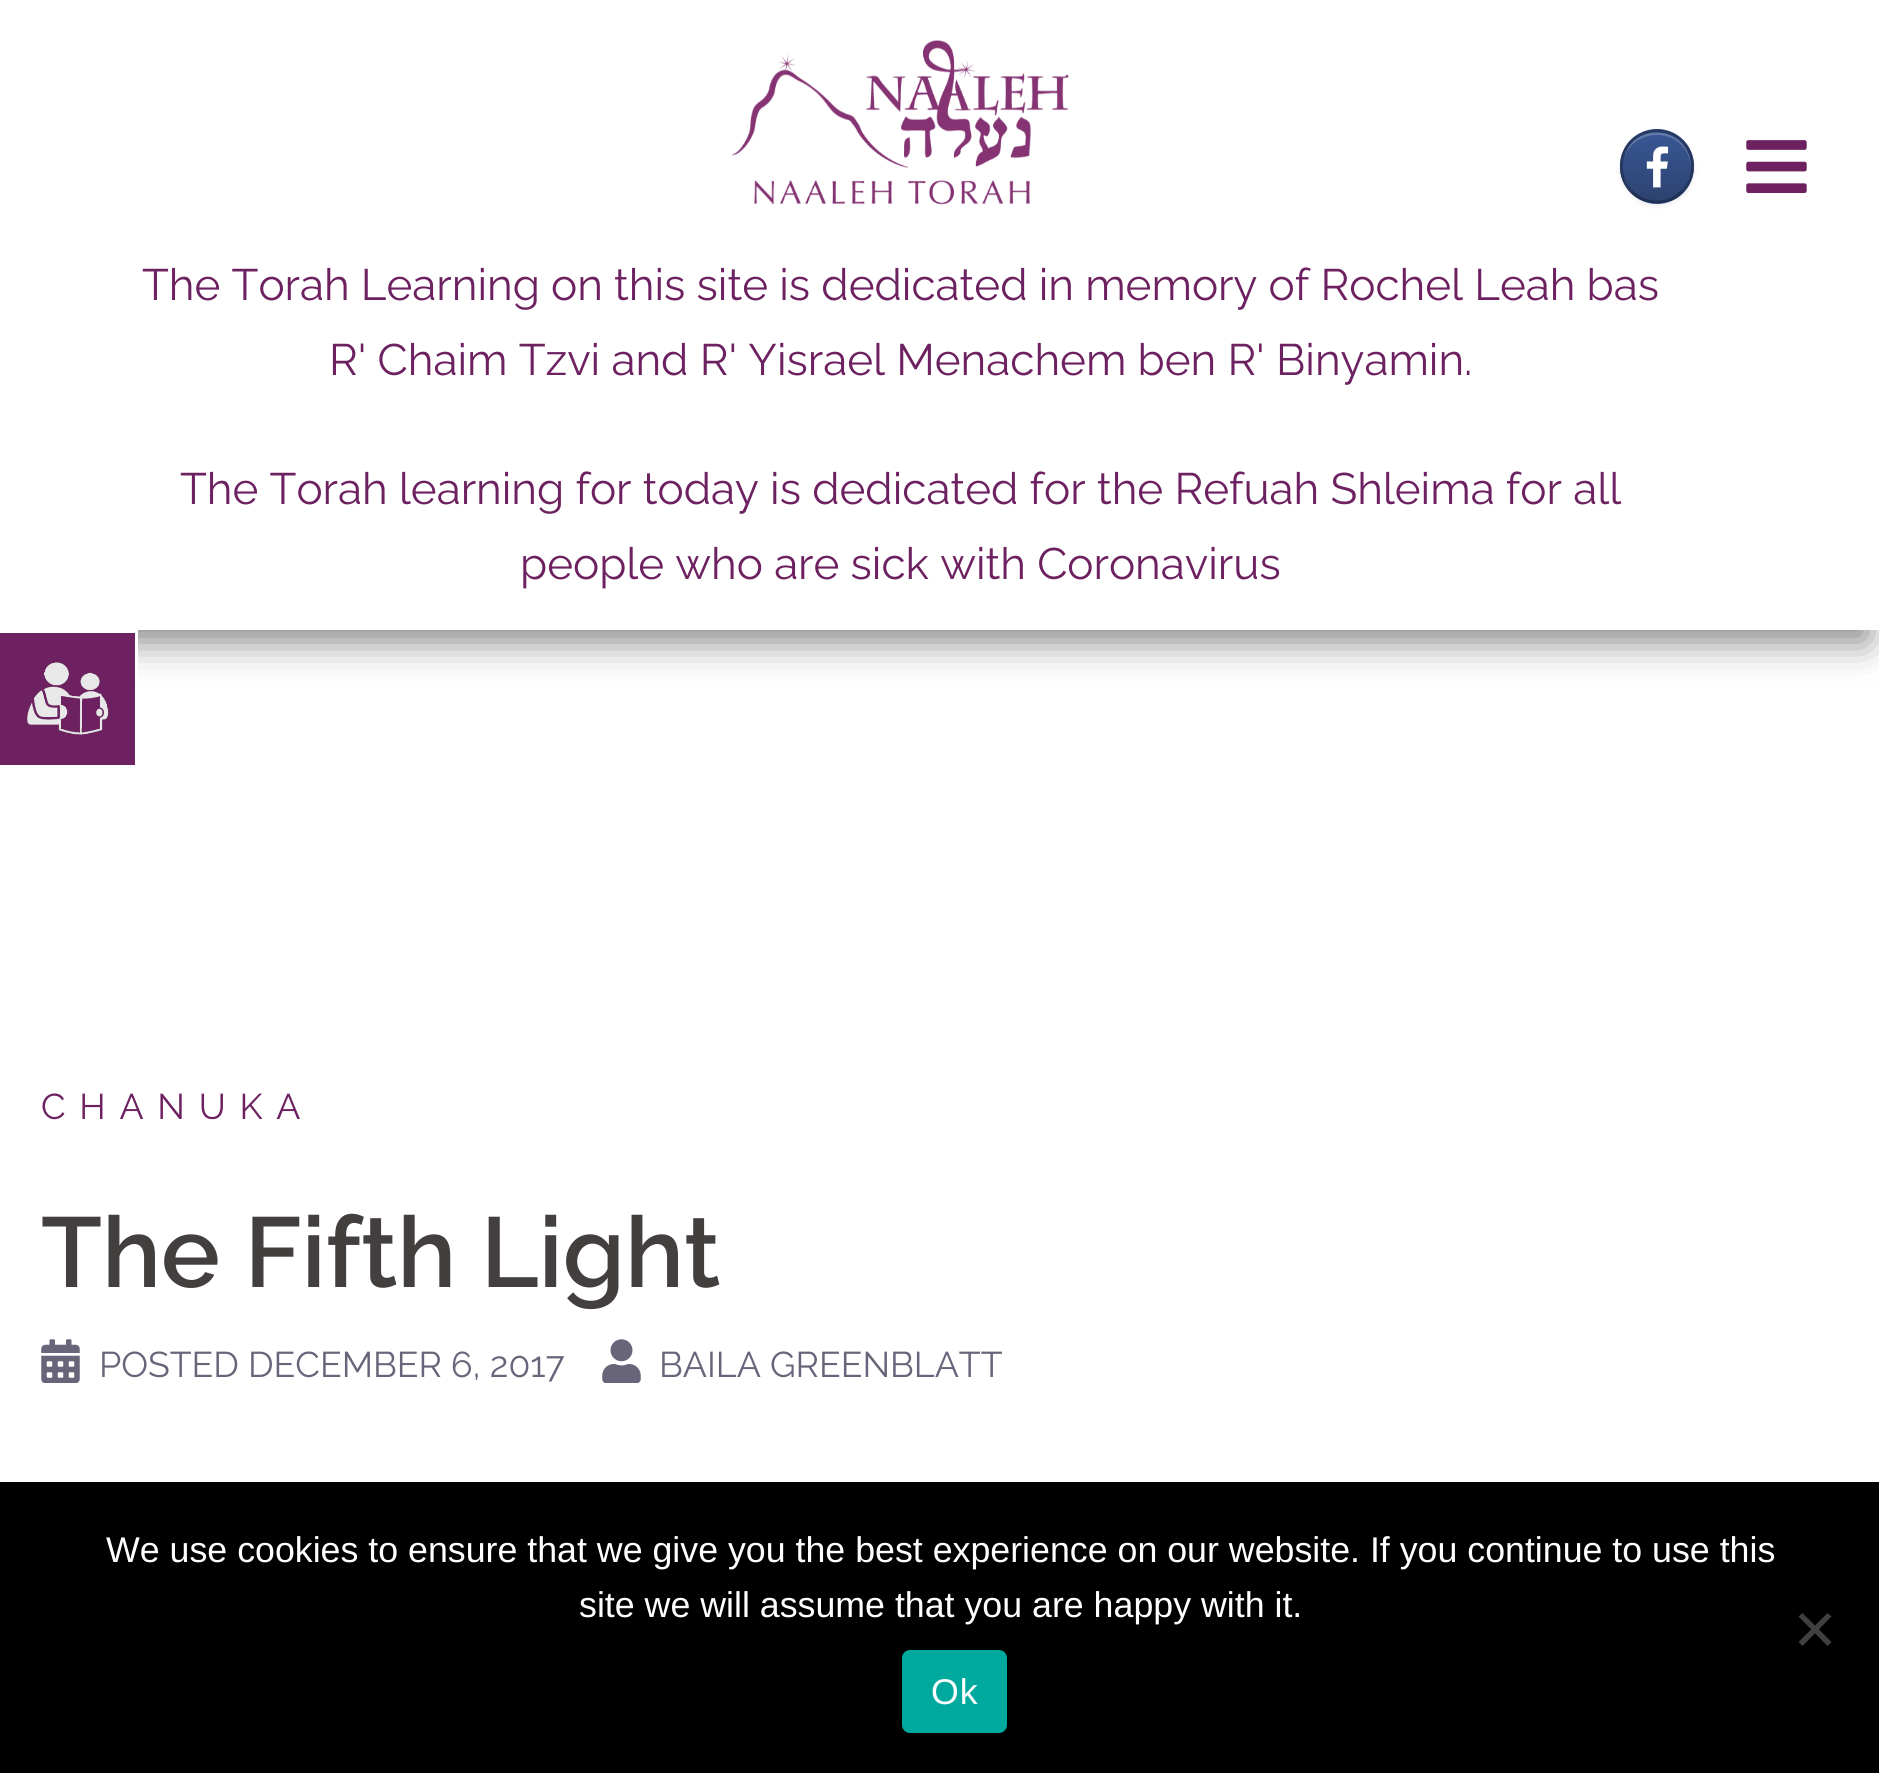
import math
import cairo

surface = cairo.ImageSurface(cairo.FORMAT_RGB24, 1879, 1773)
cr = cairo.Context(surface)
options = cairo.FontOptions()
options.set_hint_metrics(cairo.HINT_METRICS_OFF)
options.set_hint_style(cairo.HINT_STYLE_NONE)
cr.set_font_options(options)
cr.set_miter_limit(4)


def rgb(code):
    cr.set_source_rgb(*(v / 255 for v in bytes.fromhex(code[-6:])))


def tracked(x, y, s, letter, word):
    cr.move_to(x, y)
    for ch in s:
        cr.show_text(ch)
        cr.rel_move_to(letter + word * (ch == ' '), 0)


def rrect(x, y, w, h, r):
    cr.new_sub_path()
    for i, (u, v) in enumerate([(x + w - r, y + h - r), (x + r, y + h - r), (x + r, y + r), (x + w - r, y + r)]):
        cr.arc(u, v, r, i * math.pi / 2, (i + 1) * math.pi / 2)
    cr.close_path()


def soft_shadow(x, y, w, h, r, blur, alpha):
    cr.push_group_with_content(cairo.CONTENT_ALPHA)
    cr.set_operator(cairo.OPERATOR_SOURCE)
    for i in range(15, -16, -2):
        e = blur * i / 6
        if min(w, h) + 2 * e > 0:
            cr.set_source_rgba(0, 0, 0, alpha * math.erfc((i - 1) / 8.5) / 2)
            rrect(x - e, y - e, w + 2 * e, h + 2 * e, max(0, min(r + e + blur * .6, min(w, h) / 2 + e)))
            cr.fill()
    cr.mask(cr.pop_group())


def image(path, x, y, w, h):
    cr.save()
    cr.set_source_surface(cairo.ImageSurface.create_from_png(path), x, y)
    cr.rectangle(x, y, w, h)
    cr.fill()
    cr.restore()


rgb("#ffffff")
cr.paint()
rgb("#808080")
soft_shadow(14, 39, 1853, 602, 0, 19, 1)
rgb("#ffffff")
cr.rectangle(0, 0, 1879, 630)
cr.fill()
image("img/1.png", 732, 39, 337, 166)
rgb("#000000")
soft_shadow(1620, 132, 74, 74, 37, 3, 0.07)
cr.save()
rrect(1620, 129, 74, 75, 37)
cr.clip()
gradient = cairo.LinearGradient(1623, 132, 1623, 63)
gradient.add_color_stop_rgba(0, 0.173, 0.259, 0.439, 1)
gradient.add_color_stop_rgba(1, 0.227, 0.341, 0.584, 1)
cr.set_source(gradient)
cr.rectangle(1642, 129, 30, 3)
cr.fill()
gradient = cairo.LinearGradient(1623, 201, 1623, 132)
gradient.add_color_stop_rgba(0, 0.173, 0.259, 0.439, 1)
gradient.add_color_stop_rgba(1, 0.227, 0.341, 0.584, 1)
cr.set_source(gradient)
cr.rectangle(1620, 132, 74, 69)
cr.fill()
gradient = cairo.LinearGradient(1623, 270, 1623, 201)
gradient.add_color_stop_rgba(0, 0.173, 0.259, 0.439, 1)
gradient.add_color_stop_rgba(1, 0.227, 0.341, 0.584, 1)
cr.set_source(gradient)
cr.rectangle(1642, 201, 30, 3)
cr.fill()
cr.restore()
cr.set_source_rgba(1, 1, 1, 0.2)
cr.new_path()
cr.move_to(1657, 135)
cr.curve_to(1676, 135, 1690, 149, 1691, 168)
cr.curve_to(1692, 127, 1634, 119, 1624, 157)
cr.curve_to(1629, 144, 1642, 135, 1657, 135)
cr.close_path()
cr.fill()
cr.new_path()
cr.move_to(1631.5, 141)
cr.curve_to(1645.5, 127.5, 1668.5, 127.5, 1682, 141)
rgb("#273b65")
cr.set_line_width(2.8)
cr.stroke()
cr.new_path()
cr.move_to(1682, 141)
cr.curve_to(1696, 155, 1696, 178, 1682, 191.5)
rgb("#25375e")
cr.stroke()
cr.new_path()
cr.move_to(1682, 191.5)
cr.curve_to(1668.5, 205.5, 1645.5, 205.5, 1631.5, 191.5)
rgb("#203053")
cr.stroke()
cr.new_path()
cr.move_to(1631.5, 191.5)
cr.curve_to(1618, 178, 1618, 155, 1631.5, 141)
rgb("#25375e")
cr.stroke()
image("img/2.png", 1646, 146, 23, 42)
image("img/3.png", 1746, 140, 61, 53)
for x, y, w, h, color in [
    (0, 633, 135, 132, "#6d2161"),
    (0, 630, 138, 3, "#ffffff"),
    (135, 630, 3, 50, "#ffffff"),
]:
    rgb(color)
    cr.rectangle(x, y, w, h)
    cr.fill()
image("img/4.png", 27, 662, 82, 73)
image("img/5.png", 41, 1339, 39, 44)
image("img/6.png", 602, 1339, 39, 44)
rgb("#000000")
cr.rectangle(0, 1482, 1879, 291)
cr.fill()
rgb("#404040")
cr.new_path()
cr.move_to(1827.5, 1613)
cr.line_to(1831.5, 1616.5)
cr.line_to(1802.5, 1646)
cr.line_to(1798.5, 1642)
cr.close_path()
cr.fill()
cr.new_path()
cr.move_to(1798.5, 1616.5)
cr.line_to(1802.5, 1613)
cr.line_to(1831.5, 1642)
cr.line_to(1827.5, 1646)
cr.close_path()
cr.fill()
rgb("#00a99d")
rrect(902, 1650, 105, 83, 8)
cr.fill()
cr.select_font_face("Raleway")
cr.set_font_size(44)
rgb("#6d2161")
for x, y, s in [
    (142, 300, "The Torah Learning on this site is dedicated in memory of Rochel Leah bas"),
    (329, 375, "R' Chaim Tzvi and R' Yisrael Menachem ben R' Binyamin."),
    (180, 504, "The Torah learning for today is dedicated for the Refuah Shleima for all"),
    (520, 579, "people who are sick with Coronavirus"),
]:
    cr.move_to(x, y)
    cr.show_text(s)
cr.set_font_size(35.75)
tracked(41, 1119, "CHANUKA", 13.75, 0)
cr.select_font_face("Raleway SemiBold")
cr.set_font_size(99)
rgb("#443f3f")
cr.move_to(41, 1287)
cr.show_text("The Fifth Light")
cr.select_font_face("Raleway")
cr.set_font_size(35.75)
rgb("#68647a")
cr.move_to(99, 1377)
cr.show_text("POSTED DECEMBER 6, 2017")
cr.move_to(659, 1377)
cr.show_text("BAILA GREENBLATT")
cr.select_font_face("Liberation Sans")
rgb("#ffffff")
cr.move_to(106, 1562)
cr.show_text("We use cookies to ensure that we give you the best experience on our website. If you continue to use this")
cr.move_to(579, 1617)
cr.show_text("site we will assume that you are happy with it.")
tracked(931, 1704, "Ok", 1, 0)
surface.write_to_png("page.png")
